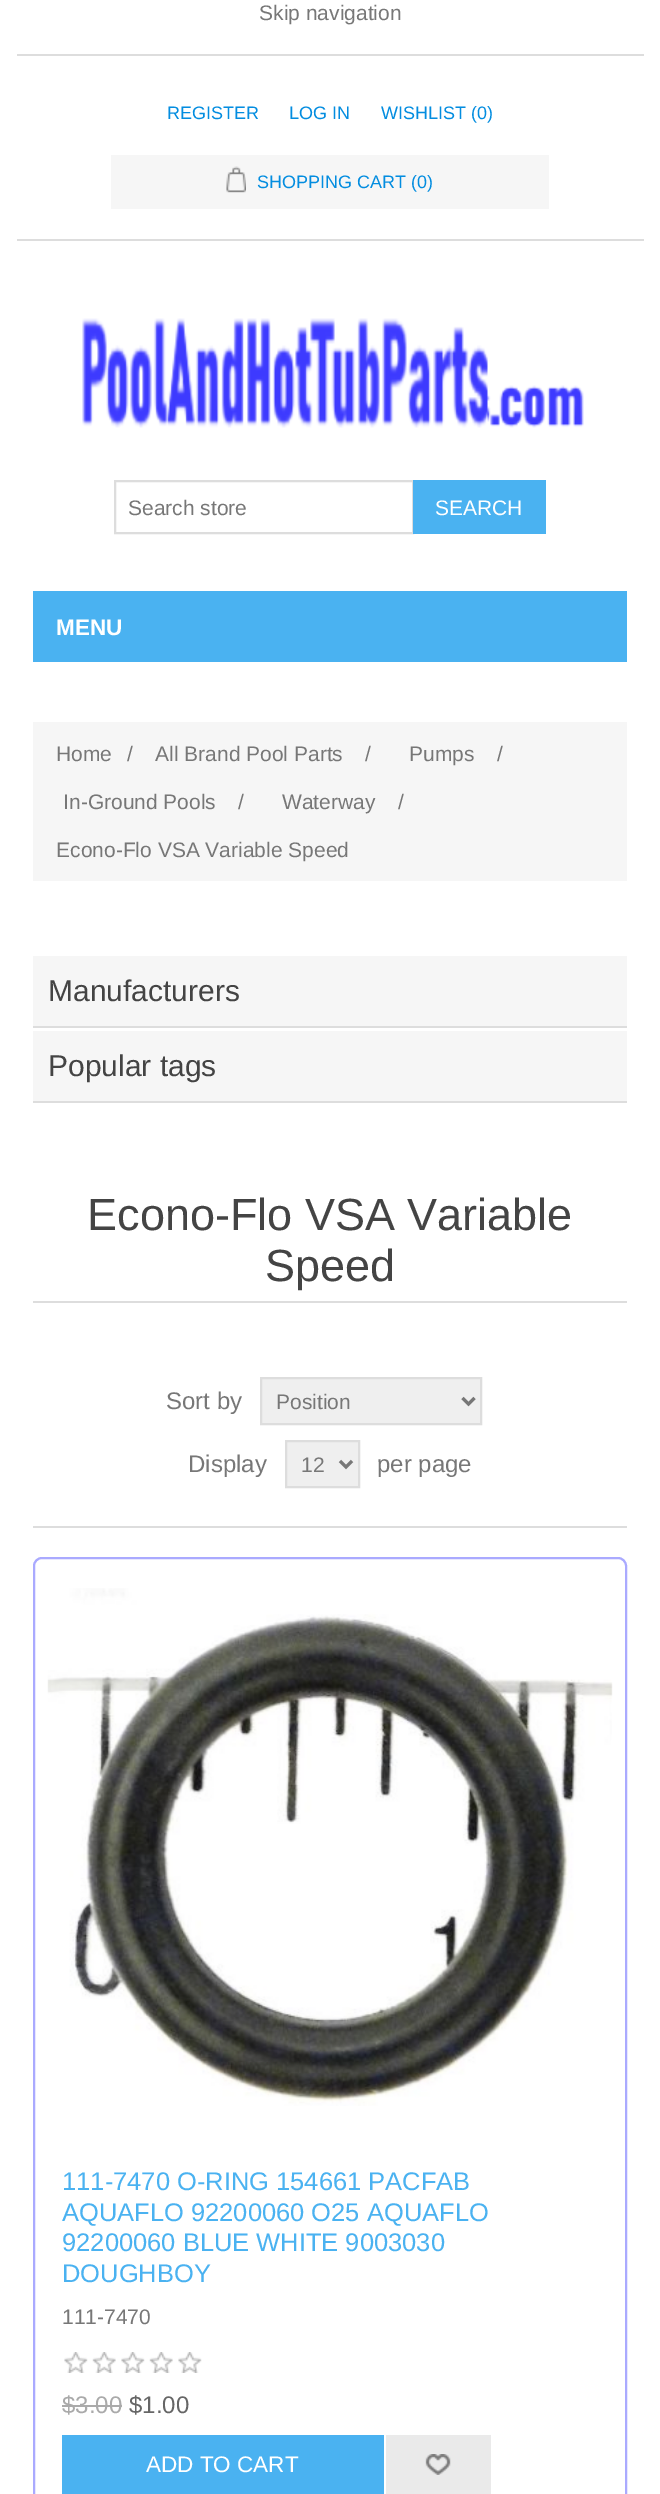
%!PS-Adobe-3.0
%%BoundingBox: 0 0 660 2494
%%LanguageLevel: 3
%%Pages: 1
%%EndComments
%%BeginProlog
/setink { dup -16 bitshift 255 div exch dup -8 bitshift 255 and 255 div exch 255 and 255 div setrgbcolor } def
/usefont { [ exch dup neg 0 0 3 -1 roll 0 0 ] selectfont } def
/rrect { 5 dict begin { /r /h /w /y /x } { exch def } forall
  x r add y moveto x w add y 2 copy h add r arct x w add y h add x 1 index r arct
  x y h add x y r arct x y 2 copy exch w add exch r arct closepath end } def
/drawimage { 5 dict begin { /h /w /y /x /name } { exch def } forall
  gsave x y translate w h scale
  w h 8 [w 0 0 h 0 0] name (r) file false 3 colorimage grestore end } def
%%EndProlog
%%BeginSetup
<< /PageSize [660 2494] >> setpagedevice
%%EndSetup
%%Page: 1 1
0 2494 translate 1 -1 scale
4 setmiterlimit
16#FFFFFF setink
0 0 660 2494 rectfill
/LiberationSans-Regular 21 usefont
16#777777 setink
259 20 moveto (Skip navigation) show
16#DDDDDD setink
17 239 627 2 rectfill
17 54 627 2 rectfill
/LiberationSans-Regular 18 usefont
16#038DE0 setink
[
    [(REGISTER) 167 119]
    [(LOG IN) 289 119]
    [(WISHLIST \(0\)) 381 119]
] { aload pop moveto show } forall
16#F6F6F6 setink
111 155 438 54 rectfill
(img1.raw) 226 166 20 27 drawimage
16#038DE0 setink
257 188 moveto (SHOPPING CART \(0\)) show
(img2.raw) 82 318 502 110 drawimage
16#DDDDDD setink
2 setlinewidth
115 481 298 52 rectstroke
/LiberationSans-Regular 21 usefont
16#777777 setink
128 515 moveto (Search store) show
16#4AB2F1 setink
413 480 133 54 rectfill
16#FFFFFF setink
435 515 moveto (SEARCH) show
16#4AB2F1 setink
33 591 594 71 rectfill
/LiberationSans-Bold 22.5 usefont
16#FFFFFF setink
56 635 moveto (MENU) show
16#F6F6F6 setink
33 722 594 159 rectfill
/LiberationSans-Regular 21 usefont
16#777777 setink
[
    [(Home) 56 761]
    [(/) 127 761]
    [(All Brand Pool Parts) 155 761]
    [(/) 365 761]
    [(Pumps) 409 761]
    [(/) 497 761]
    [(In-Ground Pools) 63 809]
    [(/) 238 809]
    [(Waterway) 282 809]
    [(/) 398 809]
    [(Econo-Flo VSA Variable Speed) 56 857]
] { aload pop moveto show } forall
16#F6F6F6 setink
33 956 594 70 rectfill
16#DDDDDD setink
33 1026 594 2 rectfill
/LiberationSans-Regular 30 usefont
16#444444 setink
48 1001 moveto (Manufacturers) show
16#F6F6F6 setink
33 1031 594 70 rectfill
16#DDDDDD setink
33 1101 594 2 rectfill
16#444444 setink
48 1076 moveto (Popular tags) show
16#DDDDDD setink
33 1301 594 2 rectfill
/LiberationSans-Regular 45 usefont
16#444444 setink
87 1230 moveto (Econo-Flo VSA Variable) show
265 1281 moveto (Speed) show
16#DDDDDD setink
33 1526 594 2 rectfill
/LiberationSans-Regular 24 usefont
16#777777 setink
166 1409 moveto (Sort by) show
16#EFEFEF setink
261 1378 moveto 481 1378 lineto 481 1424 lineto 261 1424 lineto closepath gsave fill grestore
16#DDDDDD setink
stroke
16#777777 setink
3 setlinewidth
462.5 1398 moveto 468.5 1404 lineto 474.5 1398 lineto stroke
/LiberationSans-Regular 21 usefont
276 1409 moveto (Position) show
/LiberationSans-Regular 24 usefont
188 1472 moveto (Display) show
16#EFEFEF setink
286 1441 moveto 359 1441 lineto 359 1487 lineto 286 1487 lineto closepath gsave fill grestore
16#DDDDDD setink
2 setlinewidth
stroke
16#777777 setink
3 setlinewidth
340 1461 moveto 346 1467 lineto 352 1461 lineto stroke
/LiberationSans-Regular 21 usefont
301 1472 moveto (12) show
/LiberationSans-Regular 24 usefont
377 1472 moveto (per page) show
16#AAAAFF setink
2 setlinewidth
34 1558 592 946 8 rrect stroke
(img3.raw) 47 1588 566 518 drawimage
/LiberationSans-Regular 25.5 usefont
16#4AB2F1 setink
[
    [(111-7470 O-RING 154661 PACFAB) 62 2190]
    [(AQUAFLO 92200060 O25 AQUAFLO) 62 2221]
    [(92200060 BLUE WHITE 9003030) 62 2251]
    [(DOUGHBOY) 62 2282]
] { aload pop moveto show } forall
/LiberationSans-Regular 21 usefont
16#777777 setink
62 2324 moveto (111-7470) show
(img4.raw) 64 2352 138 21 drawimage
/LiberationSans-Regular 24 usefont
16#AAAAAA setink
62 2413 moveto ($3.00) show
62 2405 60 2 rectfill
16#666666 setink
129 2413 moveto ($1.00) show
16#4AB2F1 setink
62 2435 322 59 rectfill
/LiberationSans-Regular 22.5 usefont
16#FFFFFF setink
146 2472 moveto (ADD TO CART) show
16#EAEAEA setink
386 2435 105 59 rectfill
(img5.raw) 425 2454 26 21 drawimage
showpage
%%EOF
